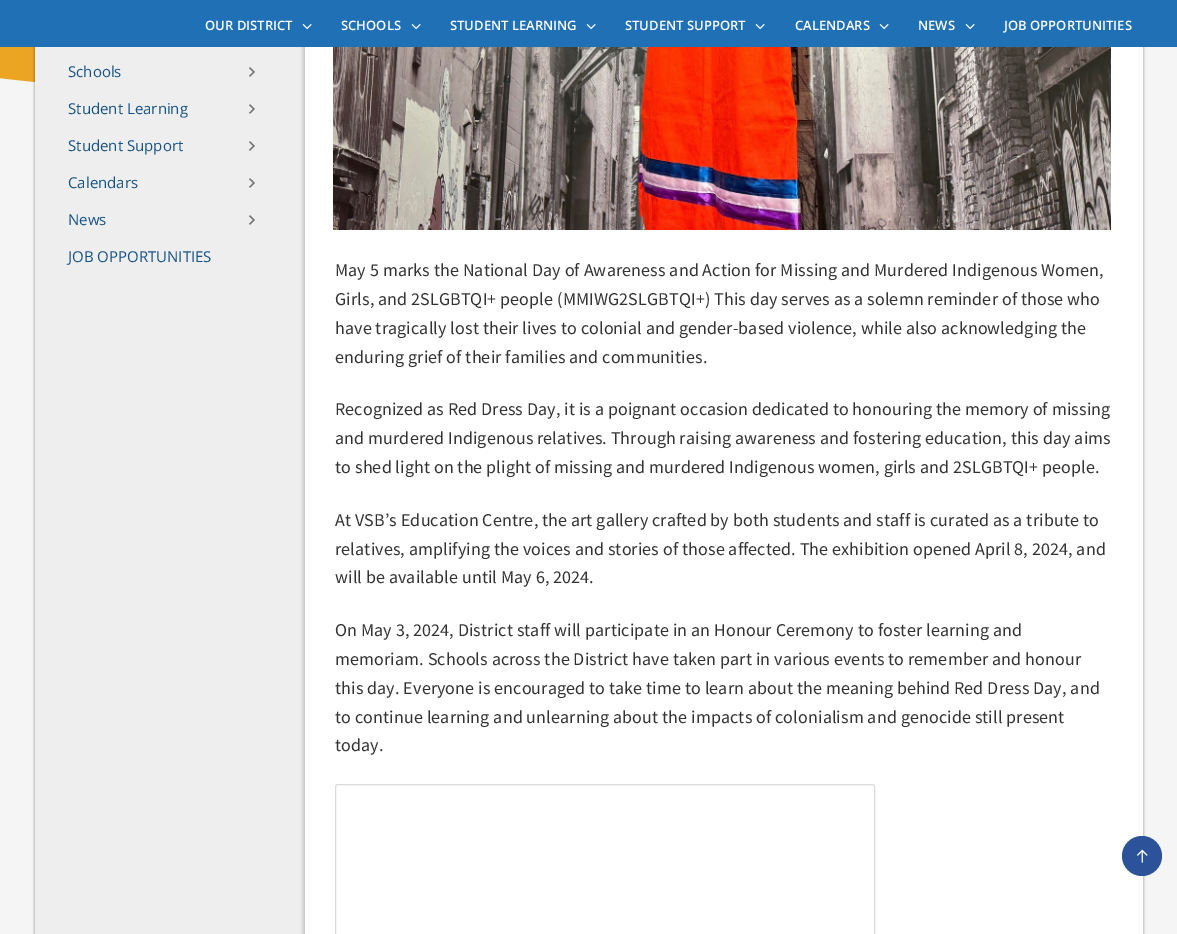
%!PS-Adobe-3.0
%%BoundingBox: 0 0 1177 934
%%LanguageLevel: 3
%%Pages: 1
%%EndComments
%%BeginProlog
/setink { dup -16 bitshift 255 div exch dup -8 bitshift 255 and 255 div exch 255 and 255 div setrgbcolor } def
/usefont { [ exch dup neg 0 0 3 -1 roll 0 0 ] selectfont } def
/setalpha { dup .setfillconstantalpha .setstrokeconstantalpha } def
/disc { newpath 0 360 arc closepath } def
/rrect { 5 dict begin { /r /h /w /y /x } { exch def } forall
  x r add y moveto x w add y 2 copy h add r arct x w add y h add x 1 index r arct
  x y h add x y r arct x y 2 copy exch w add exch r arct closepath end } def
/softshadow { 12 dict begin { /a /b /q /h /w /y /x } { exch def } forall gsave /was 0 def
  9 -2 -9 { dup b mul 4 div /e exch def 1 sub .425 mul 2.718 exch exp 1 add a .99 .min exch div /now exch def
    1 1 now sub 1 was sub div sub setalpha /was now def
    w h .min e 2 mul add 0 gt { x e sub y e sub w e 2 mul add h e 2 mul add
      q e add b .6 mul add w h .min 2 div e add .min 0 .max rrect fill } if } for grestore end } def
/drawimage { 5 dict begin { /h /w /y /x /name } { exch def } forall
  gsave x y translate w h scale
  w h 8 [w 0 0 h 0 0] name (r) file false 3 colorimage grestore end } def
%%EndProlog
%%BeginSetup
<< /PageSize [1177 934] /PageUsesTransparency true >> setpagedevice
%%EndSetup
%%Page: 1 1
0 .pushpdf14devicefilter
0 934 translate 1 -1 scale
4 setmiterlimit
16#F5F5F5 setink
0 0 1177 934 rectfill
16#ECA423 setink
0 47 35 36 rectfill
16#F5F5F5 setink
-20 76 moveto -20 156 lineto 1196 156 lineto 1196 12 lineto 1044 48 899 72 761 85 curveto 624 97 501 103 393 103 curveto 285 103 195 99 122 91 curveto 50 84 3 79 -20 76 curveto closepath fill
16#000000 setink
34 -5 1110 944 2 1 0.25 softshadow
16#2070B6 setink
0 0 1177 47 rectfill
/OpenSans-SemiBold 13 usefont
16#FFFFFF setink
205 30 moveto (OUR DISTRICT) show
(img1.raw) 302 24 10 6 drawimage
341 30 moveto (SCHOOLS) show
(img1.raw) 411 24 10 6 drawimage
450 30 moveto (STUDENT LEARNING) show
(img1.raw) 586 24 10 6 drawimage
625 30 moveto (STUDENT SUPPORT) show
(img1.raw) 755 24 10 6 drawimage
795 30 moveto (CALENDARS) show
(img1.raw) 879 24 10 6 drawimage
918 30 moveto (NEWS) show
(img1.raw) 965 24 10 6 drawimage
1004 30 moveto (JOB OPPORTUNITIES) show
305 47 838 887 rectfill
16#EEEEEE setink
35 47 265 887 rectfill
/OpenSans-Regular 15 usefont
16#175285 setink
68 77 moveto (Schools) show
(img2.raw) 249 67 6 10 drawimage
68 114 moveto (Student Learning) show
(img2.raw) 249 104 6 10 drawimage
68 151 moveto (Student Support) show
(img2.raw) 249 141 6 10 drawimage
68 188 moveto (Calendars) show
(img2.raw) 249 178 6 10 drawimage
68 225 moveto (News) show
(img2.raw) 249 215 6 10 drawimage
68 262 moveto (JOB OPPORTUNITIES) show
gsave 300 47 moveto 305 47 lineto 305 934 lineto 300 934 lineto closepath clip newpath
<< /ShadingType 2 /ColorSpace /DeviceRGB /Coords [300 679 305 679] /Extend [true true] /Function << /FunctionType 2 /Domain [0 1] /C0 [0.933 0.933 0.933] /C1 [0.792 0.792 0.792] /N 1 >> >> shfill grestore
(img3.raw) 333 47 778 183 drawimage
/SourceSansPro-Regular 18 usefont
16#333333 setink
335 276 moveto 0.14 0 (May 5 marks the National Day of Awareness and Action for Missing and Murdered Indigenous Women,) ashow
335 305 moveto 0.14 0 (Girls, and 2SLGBTQI+ people \(MMIWG2SLGBTQI+\) This day serves as a solemn reminder of those who) ashow
335 334 moveto 0.14 0 (have tragically lost their lives to colonial and gender-based violence, while also acknowledging the) ashow
335 363 moveto 0.14 0 (enduring grief of their families and communities.) ashow
335 415 moveto 0.14 0 (Recognized as Red Dress Day, it is a poignant occasion dedicated to honouring the memory of missing) ashow
335 444 moveto 0.14 0 (and murdered Indigenous relatives. Through raising awareness and fostering education, this day aims) ashow
335 473 moveto 0.14 0 (to shed light on the plight of missing and murdered Indigenous women, girls and 2SLGBTQI+ people.) ashow
335 526 moveto 0.14 0 (At VSB’s Education Centre, the art gallery crafted by both students and staff is curated as a tribute to) ashow
335 555 moveto 0.14 0 (relatives, amplifying the voices and stories of those affected. The exhibition opened April 8, 2024, and) ashow
335 583 moveto 0.14 0 (will be available until May 6, 2024.) ashow
335 636 moveto 0.14 0 (On May 3, 2024, District staff will participate in an Honour Ceremony to foster learning and) ashow
335 665 moveto 0.14 0 (memoriam. Schools across the District have taken part in various events to remember and honour) ashow
335 694 moveto 0.14 0 (this day. Everyone is encouraged to take time to learn about the meaning behind Red Dress Day, and) ashow
335 723 moveto 0.14 0 (to continue learning and unlearning about the impacts of colonialism and genocide still present) ashow
335 751 moveto 0.14 0 (today.) ashow
16#DBDBDB setink
335.5 784.5 539 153 2.5 rrect stroke
16#2C5399 setink
1142 856 20 disc fill
(img4.raw) 1137 849 11 14 drawimage
.poppdf14devicefilter showpage
%%EOF
